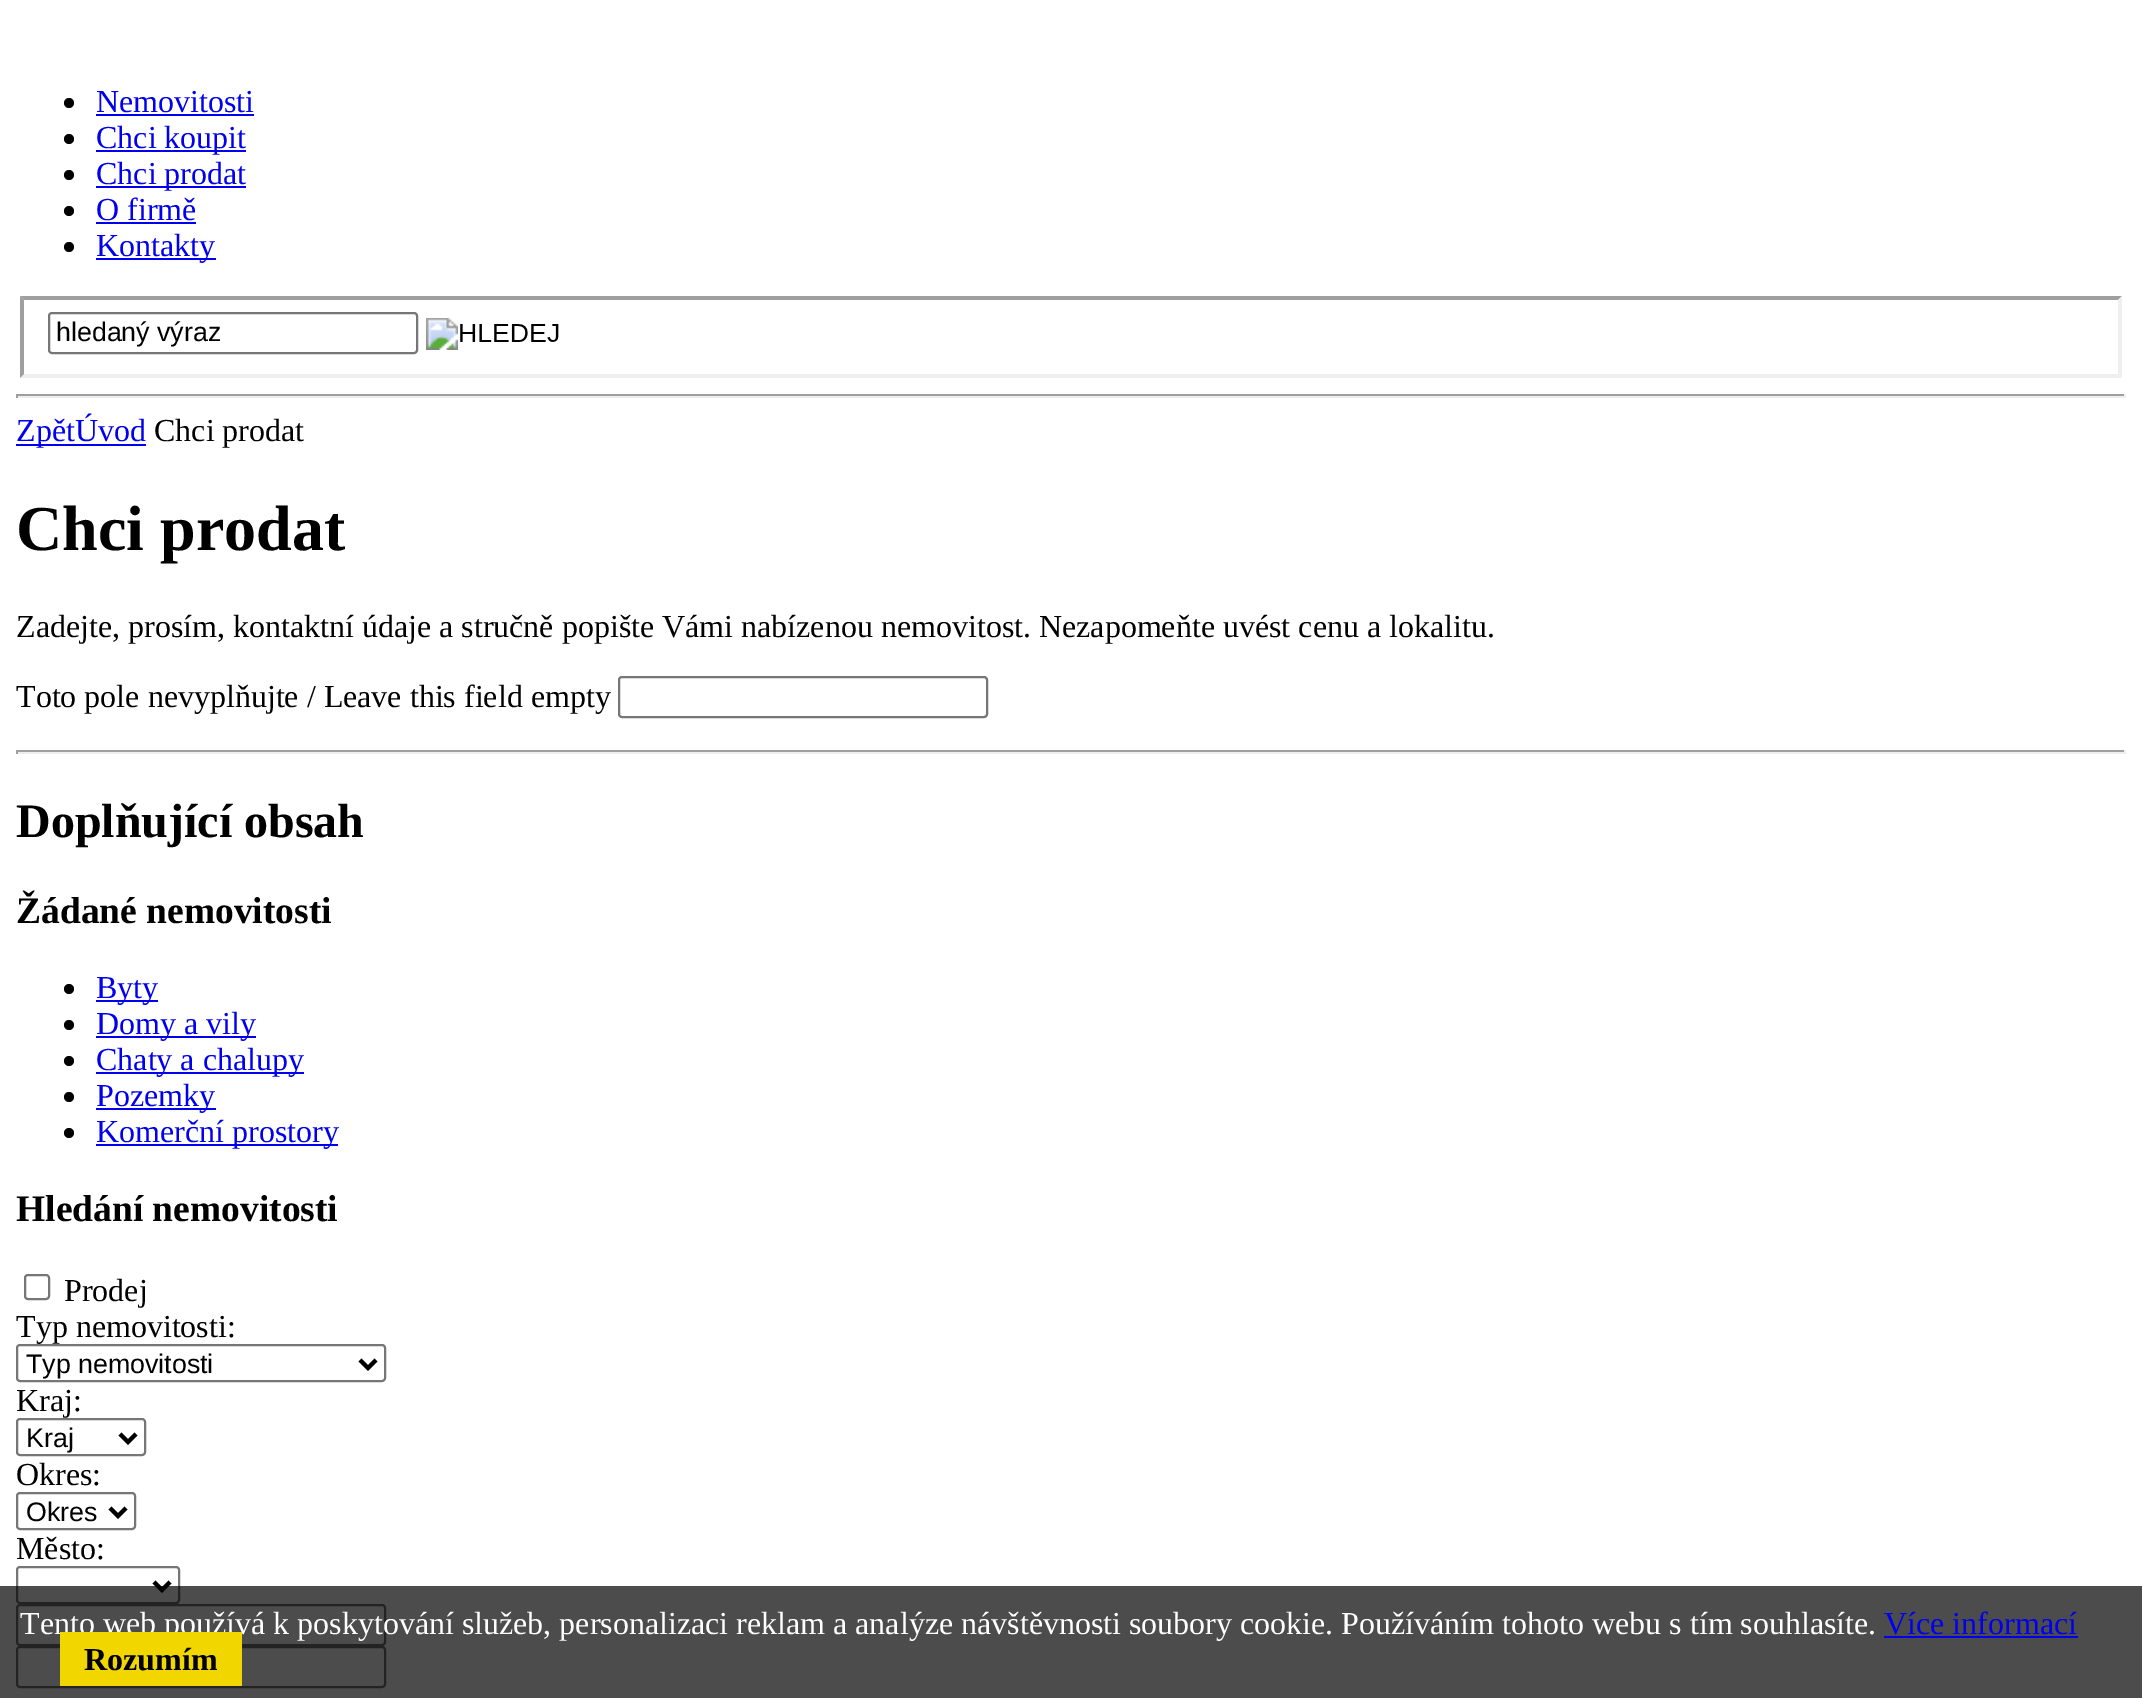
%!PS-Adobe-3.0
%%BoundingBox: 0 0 2142 1698
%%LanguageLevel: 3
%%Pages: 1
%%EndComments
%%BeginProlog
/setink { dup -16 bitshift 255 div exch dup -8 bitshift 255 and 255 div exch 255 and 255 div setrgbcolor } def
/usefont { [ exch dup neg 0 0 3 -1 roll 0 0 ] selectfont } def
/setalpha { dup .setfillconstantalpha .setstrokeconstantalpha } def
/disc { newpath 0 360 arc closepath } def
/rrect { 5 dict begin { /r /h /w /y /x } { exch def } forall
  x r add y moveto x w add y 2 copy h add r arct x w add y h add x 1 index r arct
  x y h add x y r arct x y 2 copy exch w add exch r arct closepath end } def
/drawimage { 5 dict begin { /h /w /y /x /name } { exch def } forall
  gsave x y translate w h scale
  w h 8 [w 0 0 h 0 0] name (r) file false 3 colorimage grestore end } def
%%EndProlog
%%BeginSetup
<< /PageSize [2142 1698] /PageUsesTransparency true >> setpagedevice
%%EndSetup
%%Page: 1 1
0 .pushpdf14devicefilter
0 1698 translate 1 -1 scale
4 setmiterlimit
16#FFFFFF setink
0 0 2142 1698 rectfill
16#000000 setink
69 103 5 disc fill
/LiberationSerif-Regular 32 usefont
16#0000EE setink
96 112 moveto (Nemovitosti) show
96 114 158 2 rectfill
16#000000 setink
69 139 5 disc fill
16#0000EE setink
96 150 150 2 rectfill
96 148 moveto (Chci koupit) show
16#000000 setink
69 175 5 disc fill
16#0000EE setink
96 186 150 2 rectfill
96 184 moveto (Chci prodat) show
16#000000 setink
69 211 5 disc fill
16#0000EE setink
96 220 moveto (O firmě) show
96 222 100 2 rectfill
16#000000 setink
69 247 5 disc fill
16#0000EE setink
96 258 120 2 rectfill
96 256 moveto (Kontakty) show
16#9F9F9F setink
20 296 moveto 2122 296 lineto 2118 300 lineto 24 300 lineto closepath fill
16#EFEFEF setink
2122 296 moveto 2122 378 lineto 2118 374 lineto 2118 300 lineto closepath fill
2122 378 moveto 20 378 lineto 24 374 lineto 2118 374 lineto closepath fill
16#9F9F9F setink
20 378 moveto 20 296 lineto 24 300 lineto 24 374 lineto closepath fill
16#767676 setink
2 setlinewidth
49 313 368 40 3 rrect stroke
/LiberationSans-Regular 26.75 usefont
16#000000 setink
56 341 moveto (hledaný výraz) show
(img1.raw) 426 318 133 32 drawimage
[
    [16 394 2110 2 16#9F9F9F]
    [2124 394 2 4 16#EEEEEE]
    [16 396 2110 2 16#EEEEEE]
    [16 394 2 4 16#9F9F9F]
    [16 444 58 2 16#0000EE]
] { aload pop setink rectfill } forall
/LiberationSerif-Regular 32 usefont
16 441 moveto (ZpětÚvod) show
16#000000 setink
154 441 moveto (Chci prodat) show
16#0000EE setink
74 444 72 2 rectfill
/LiberationSerif-Bold 64 usefont
16#000000 setink
16 550 moveto (Chci prodat) show
/LiberationSerif-Regular 32 usefont
16 637 moveto (Zadejte, prosím, kontaktní údaje a stručně popište Vámi nabízenou nemovitost. Nezapomeňte uvést cenu a lokalitu.) show
16 707 moveto (Toto pole nevyplňujte / Leave this field empty) show
16#767676 setink
619 677 368 40 3 rrect stroke
[
    [16 750 2110 2 16#9F9F9F]
    [2124 750 2 4 16#EEEEEE]
    [16 752 2110 2 16#EEEEEE]
    [16 750 2 4 16#9F9F9F]
] { aload pop setink rectfill } forall
/LiberationSerif-Bold 48 usefont
16#000000 setink
16 837 moveto (Doplňující obsah) show
/LiberationSerif-Bold 37.5 usefont
16 923 moveto (Žádané nemovitosti) show
69 989 5 disc fill
16#0000EE setink
96 1000 62 2 rectfill
/LiberationSerif-Regular 32 usefont
96 998 moveto (Byty) show
16#000000 setink
69 1025 5 disc fill
16#0000EE setink
96 1036 160 2 rectfill
96 1034 moveto (Domy a vily) show
16#000000 setink
69 1061 5 disc fill
16#0000EE setink
96 1072 208 2 rectfill
96 1070 moveto (Chaty a chalupy) show
16#000000 setink
69 1097 5 disc fill
16#0000EE setink
96 1108 120 2 rectfill
96 1106 moveto (Pozemky) show
16#000000 setink
69 1133 5 disc fill
16#0000EE setink
96 1144 242 2 rectfill
96 1142 moveto (Komerční prostory) show
/LiberationSerif-Bold 37.5 usefont
16#000000 setink
16 1221 moveto (Hledání nemovitosti) show
16#767676 setink
25 1275 24 24 3 rrect stroke
/LiberationSerif-Regular 32 usefont
16#000000 setink
64 1301 moveto (Prodej) show
16 1337 moveto (Typ nemovitosti:) show
16#767676 setink
17 1345 368 36 3 rrect stroke
16#000000 setink
4 setlinewidth
360 1360 moveto 368 1368 lineto 376 1360 lineto stroke
/LiberationSans-Regular 26.75 usefont
26 1373 moveto (Typ nemovitosti) show
/LiberationSerif-Regular 32 usefont
16 1411 moveto (Kraj:) show
16#767676 setink
2 setlinewidth
17 1419 128 36 3 rrect stroke
16#000000 setink
4 setlinewidth
120 1434 moveto 128 1442 lineto 136 1434 lineto stroke
/LiberationSans-Regular 26.75 usefont
26 1447 moveto (Kraj) show
/LiberationSerif-Regular 32 usefont
16 1485 moveto (Okres:) show
16#767676 setink
2 setlinewidth
17 1493 118 36 3 rrect stroke
16#000000 setink
4 setlinewidth
110 1508 moveto 118 1516 lineto 126 1508 lineto stroke
/LiberationSans-Regular 26.75 usefont
26 1521 moveto (Okres) show
/LiberationSerif-Regular 32 usefont
16 1559 moveto (Město:) show
16#767676 setink
2 setlinewidth
17 1567 162 36 3 rrect stroke
16#000000 setink
4 setlinewidth
154 1582 moveto 162 1590 lineto 170 1582 lineto stroke
16#767676 setink
2 setlinewidth
17 1605 368 40 3 rrect stroke
17 1647 368 40 3 rrect stroke
0.7 setalpha
16#000000 setink
0 1586 2142 112 rectfill
1 setalpha
16#FFFFFF setink
20 1634 moveto (Tento web používá k poskytování služeb, personalizaci reklam a analýze návštěvnosti soubory cookie. Používáním tohoto webu s tím souhlasíte.) show
16#0000EE setink
1884 1634 moveto (Více informací) show
1884 1636 194 2 rectfill
16#F1D600 setink
60 1632 182 54 rectfill
/LiberationSerif-Bold 32 usefont
16#000000 setink
84 1670 moveto (Rozumím) show
.poppdf14devicefilter showpage
%%EOF
